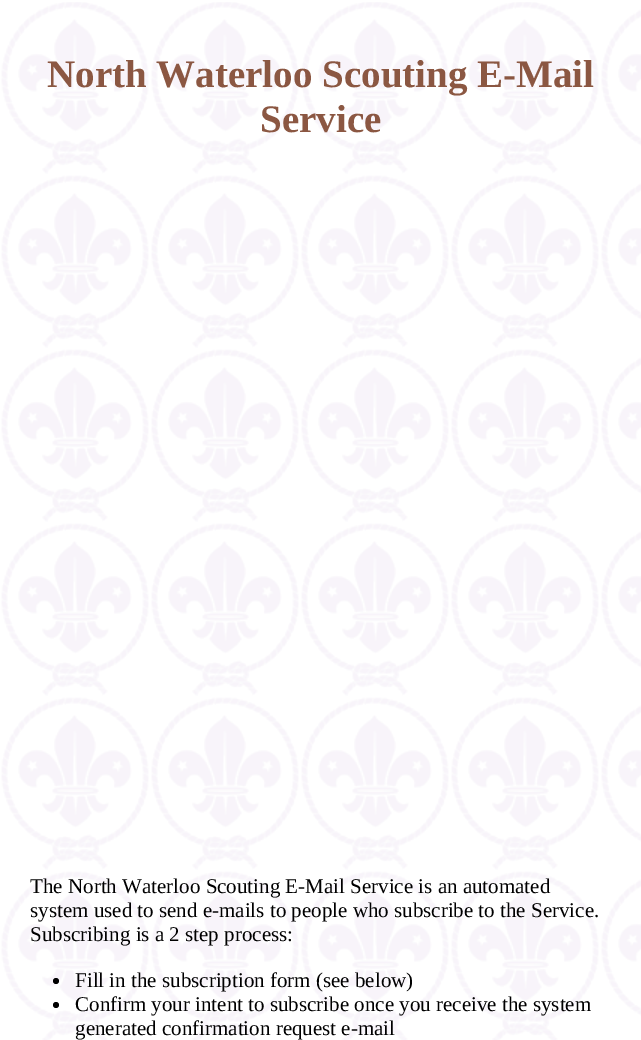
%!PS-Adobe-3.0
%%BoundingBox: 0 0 641 1040
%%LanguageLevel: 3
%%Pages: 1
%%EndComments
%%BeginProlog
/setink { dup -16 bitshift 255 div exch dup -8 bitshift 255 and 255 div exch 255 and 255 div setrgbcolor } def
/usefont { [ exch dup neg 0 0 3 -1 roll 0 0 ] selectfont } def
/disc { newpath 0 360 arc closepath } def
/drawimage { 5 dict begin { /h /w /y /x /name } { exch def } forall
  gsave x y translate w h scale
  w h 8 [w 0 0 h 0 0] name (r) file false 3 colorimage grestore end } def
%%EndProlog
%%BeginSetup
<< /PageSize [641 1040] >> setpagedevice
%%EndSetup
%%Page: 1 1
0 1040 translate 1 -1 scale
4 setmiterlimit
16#FFFFFF setink
0 0 641 1040 rectfill
(img1.raw) 1 2 640 1038 drawimage
/LiberationSerif-Bold 39 usefont
16#8B5742 setink
47 87 moveto (North Waterloo Scouting E-Mail) show
260 132 moveto (Service) show
/LiberationSerif-Regular 21 usefont
16#000000 setink
[
    [(The North Waterloo Scouting E-Mail Service is an automated) 30 893]
    [(system used to send e-mails to people who subscribe to the Service.) 30 917]
    [(Subscribing is a 2 step process:) 30 941]
] { aload pop moveto show } forall
56 981 3 disc fill
75 987 moveto (Fill in the subscription form \(see below\)) show
56 1005 3 disc fill
75 1011 moveto (Confirm your intent to subscribe once you receive the system) show
75 1035 moveto (generated confirmation request e-mail) show
showpage
%%EOF
